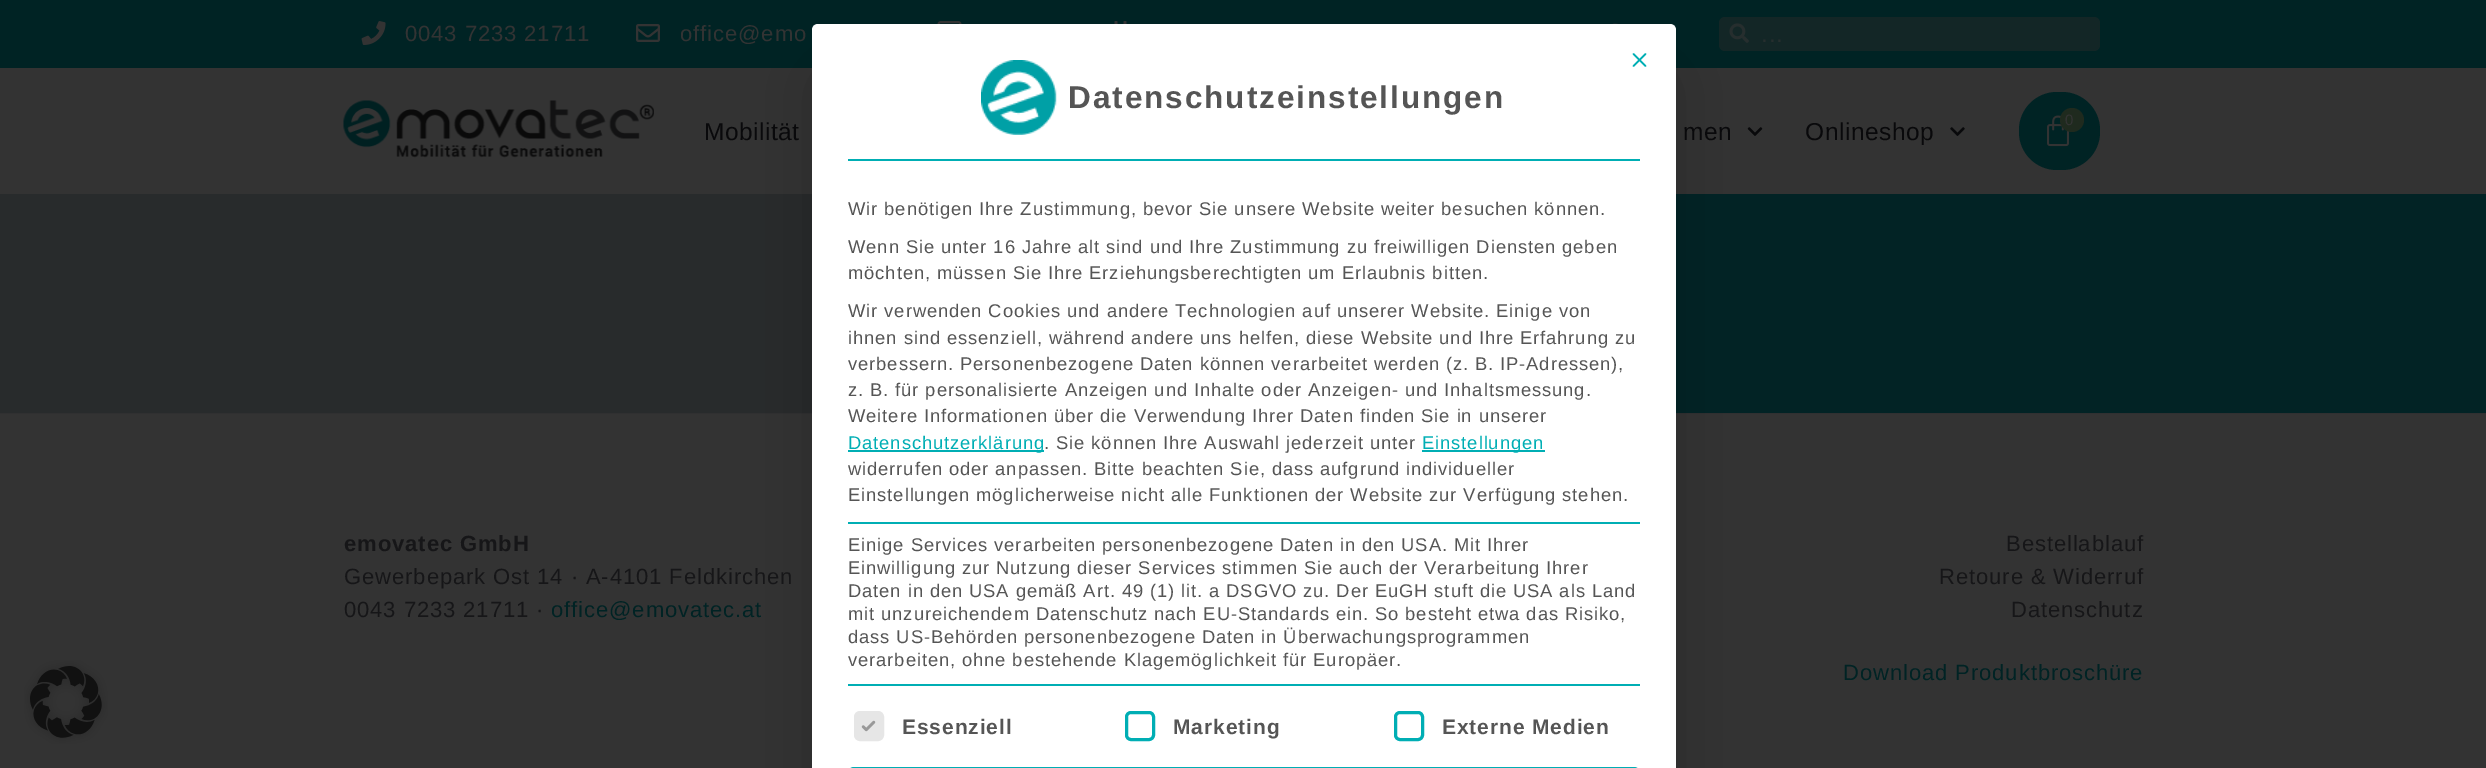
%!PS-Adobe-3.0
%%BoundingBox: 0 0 2486 768
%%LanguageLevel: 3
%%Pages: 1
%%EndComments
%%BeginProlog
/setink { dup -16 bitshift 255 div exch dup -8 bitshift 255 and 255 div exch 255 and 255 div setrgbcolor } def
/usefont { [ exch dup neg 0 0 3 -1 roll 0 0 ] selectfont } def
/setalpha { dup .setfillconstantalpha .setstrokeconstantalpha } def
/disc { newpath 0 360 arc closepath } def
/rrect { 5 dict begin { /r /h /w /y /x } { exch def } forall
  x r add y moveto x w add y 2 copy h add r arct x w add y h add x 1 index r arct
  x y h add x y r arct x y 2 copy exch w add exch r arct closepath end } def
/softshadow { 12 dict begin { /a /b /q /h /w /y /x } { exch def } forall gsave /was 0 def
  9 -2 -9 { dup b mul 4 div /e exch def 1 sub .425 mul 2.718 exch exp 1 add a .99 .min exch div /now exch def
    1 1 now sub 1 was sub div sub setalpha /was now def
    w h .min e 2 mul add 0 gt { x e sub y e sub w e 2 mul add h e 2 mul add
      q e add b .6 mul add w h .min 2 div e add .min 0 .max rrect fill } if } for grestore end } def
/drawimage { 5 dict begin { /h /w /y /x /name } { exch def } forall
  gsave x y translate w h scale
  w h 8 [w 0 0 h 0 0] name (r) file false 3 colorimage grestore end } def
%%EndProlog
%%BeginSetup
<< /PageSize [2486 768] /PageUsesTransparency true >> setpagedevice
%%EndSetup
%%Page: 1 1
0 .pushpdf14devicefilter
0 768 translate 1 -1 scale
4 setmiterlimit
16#333333 setink
0 0 2486 768 rectfill
16#002324 setink
0 0 2486 68 rectfill
(img1.raw) 1612 23 6 1 drawimage
(img2.raw) 937 21 25 3 drawimage
(img3.raw) 1114 21 13 3 drawimage
(img4.raw) 361 21 25 24 drawimage
/LiberationSans-Regular 22.05 usefont
16#333333 setink
405 41 moveto 0.9 0 (0043 7233 21711) ashow
(img5.raw) 636 24 24 18 drawimage
680 41 moveto 0.9 0 (office@emo) ashow
16#132626 setink
1719 17 381 34 6 rrect fill
(img6.raw) 1729 23 20 20 drawimage
/LiberationSans-Regular 24 usefont
16#262E2E setink
1761 42 moveto 0.9 0 (...) ashow
(img7.raw) 343 100 311 58 drawimage
16#002324 setink
2019 92 81 78 38 rrect fill
(img8.raw) 2047 115 22 32 drawimage
16#1F2A1E setink
2072 120 12 disc fill
/LiberationSans-Regular 15 usefont
16#333333 setink
2065 125 moveto 3 0 (0) ashow
/LiberationSans-Regular 24.5 usefont
16#09090B setink
704 140 moveto 0.5 0 (Mobilität) ashow
1683 140 moveto 0.5 0 (men) ashow
(img9.raw) 1747 127 16 9 drawimage
1805 140 moveto 0.5 0 (Onlineshop) ashow
(img10.raw) 1950 127 15 9 drawimage
[
    [0 194 812 219 16#282B2C]
    [1676 194 810 219 16#022325]
    [0 413 2486 1 16#303031]
] { aload pop setink rectfill } forall
/LiberationSans-Bold 22.05 usefont
16#161618 setink
344 551 moveto 0.9 0 (emovatec GmbH) ashow
/LiberationSans-Regular 22.05 usefont
344 584 moveto 0.9 0 (Gewerbepark Ost 14 · A-4101 Feldkirchen) ashow
344 617 moveto 0.9 0 (0043 7233 21711 ·) ashow
16#002324 setink
551 617 moveto 0.9 0 (office@emovatec.at) ashow
16#161618 setink
2006 551 moveto 0.9 0 (Bestellablauf) ashow
1939 584 moveto 0.9 0 (Retoure & Widerruf) ashow
2011 617 moveto 0.9 0 (Datenschutz) ashow
16#002324 setink
1843 680 moveto 0.9 0 (Download Produktbroschüre) ashow
(img11.raw) 24 660 84 84 drawimage
16#000000 setink
830 80 828 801 0 37.5 0.25 softshadow
16#FFFFFF setink
818 24 moveto 1670 24 lineto 1673.5 24 1676 26.5 1676 30 curveto 1676 768 lineto 812 768 lineto 812 30 lineto 812 26.5 814.5 24 818 24 curveto closepath fill
16#00AEB4 setink
1.5 setlinewidth
1 setlinecap
1 setlinejoin
1633.5 66 moveto 1645.5 54 lineto 1633.5 54 moveto 1645.5 66 lineto stroke
848 159 792 2 rectfill
(img12.raw) 981 60 76 75 drawimage
/LiberationSans-Bold 31.5 usefont
16#555555 setink
1068 108 moveto 1.95 0 (Datenschutzeinstellungen) ashow
/LiberationSans-Regular 18.4 usefont
848 215 moveto 0.9 0 (Wir benötigen Ihre Zustimmung, bevor Sie unsere Website weiter besuchen können.) ashow
848 253 moveto 0.9 0 (Wenn Sie unter 16 Jahre alt sind und Ihre Zustimmung zu freiwilligen Diensten geben) ashow
848 279 moveto 0.9 0 (möchten, müssen Sie Ihre Erziehungsberechtigten um Erlaubnis bitten.) ashow
848 317 moveto 0.9 0 (Wir verwenden Cookies und andere Technologien auf unserer Website. Einige von) ashow
848 344 moveto 0.9 0 (ihnen sind essenziell, während andere uns helfen, diese Website und Ihre Erfahrung zu) ashow
848 370 moveto 0.9 0 (verbessern. Personenbezogene Daten können verarbeitet werden \(z. B. IP-Adressen\),) ashow
848 396 moveto 0.9 0 (z. B. für personalisierte Anzeigen und Inhalte oder Anzeigen- und Inhaltsmessung.) ashow
848 422 moveto 0.9 0 (Weitere Informationen über die Verwendung Ihrer Daten finden Sie in unserer) ashow
16#00AEB4 setink
848 450 196 2 rectfill
848 449 moveto 0.9 0 (Datenschutzerklärung) ashow
16#555555 setink
1044 449 moveto 0.9 0 (. Sie können Ihre Auswahl jederzeit unter) ashow
16#00AEB4 setink
1422 450 123 2 rectfill
1422 449 moveto 0.9 0 (Einstellungen) ashow
16#555555 setink
848 475 moveto 0.9 0 (widerrufen oder anpassen. Bitte beachten Sie, dass aufgrund individueller) ashow
848 501 moveto 0.9 0 (Einstellungen möglicherweise nicht alle Funktionen der Website zur Verfügung stehen.) ashow
16#00AEB4 setink
848 522 792 2 rectfill
848 684 792 2 rectfill
16#555555 setink
848 551 moveto 0.9 0 (Einige Services verarbeiten personenbezogene Daten in den USA. Mit Ihrer) ashow
848 574 moveto 0.9 0 (Einwilligung zur Nutzung dieser Services stimmen Sie auch der Verarbeitung Ihrer) ashow
848 597 moveto 0.9 0 (Daten in den USA gemäß Art. 49 \(1\) lit. a DSGVO zu. Der EuGH stuft die USA als Land) ashow
848 620 moveto 0.9 0 (mit unzureichendem Datenschutz nach EU-Standards ein. So besteht etwa das Risiko,) ashow
848 643 moveto 0.9 0 (dass US-Behörden personenbezogene Daten in Überwachungsprogrammen) ashow
848 666 moveto 0.9 0 (verarbeiten, ohne bestehende Klagemöglichkeit für Europäer.) ashow
16#E6E6E6 setink
855.5 712.5 27 27 4.5 rrect gsave fill grestore
3 setlinewidth
0 setlinecap
0 setlinejoin
stroke
(img13.raw) 861 720 15 12 drawimage
/LiberationSans-Bold 21 usefont
16#555555 setink
902 734 moveto 0.9 0 (Essenziell) ashow
16#00AEB4 setink
1126.5 712.5 27 27 4.5 rrect stroke
16#555555 setink
1173 734 moveto 0.9 0 (Marketing) ashow
16#00AEB4 setink
1395.5 712.5 27 27 4.5 rrect stroke
16#555555 setink
1442 734 moveto 0.9 0 (Externe Medien) ashow
16#00AEB4 setink
854 767 moveto 1634 767 lineto 1637.5 767 1640 769.5 1640 773 curveto 1640 768 lineto 848 768 lineto 848 773 lineto 848 769.5 850.5 767 854 767 curveto closepath fill
.poppdf14devicefilter showpage
%%EOF
